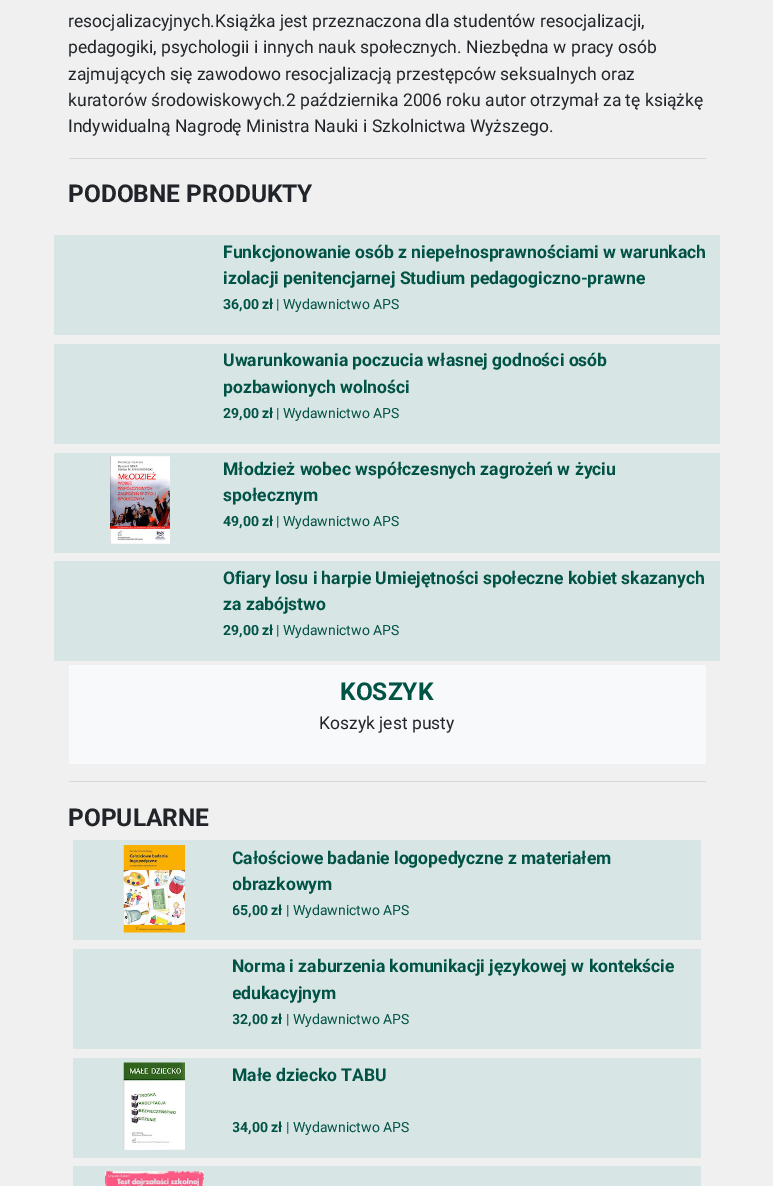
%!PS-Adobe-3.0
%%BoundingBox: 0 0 773 1186
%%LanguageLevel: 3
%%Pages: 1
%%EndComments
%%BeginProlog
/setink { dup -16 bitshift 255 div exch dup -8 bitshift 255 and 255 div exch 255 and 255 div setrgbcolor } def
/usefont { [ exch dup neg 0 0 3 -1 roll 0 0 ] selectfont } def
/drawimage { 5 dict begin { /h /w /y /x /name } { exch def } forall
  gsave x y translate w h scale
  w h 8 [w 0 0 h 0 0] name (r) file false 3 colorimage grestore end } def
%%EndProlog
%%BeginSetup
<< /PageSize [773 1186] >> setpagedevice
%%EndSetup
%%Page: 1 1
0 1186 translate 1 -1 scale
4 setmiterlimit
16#F0F0F0 setink
0 0 773 1186 rectfill
/Roboto-Regular 17.5 usefont
16#212529 setink
[
    [(resocjalizacyjnych.Książka jest przeznaczona dla studentów resocjalizacji,) 68 27]
    [(pedagogiki, psychologii i innych nauk społecznych. Niezbędna w pracy osób) 68 53]
    [(zajmujących się zawodowo resocjalizacją przestępców seksualnych oraz) 68 80]
    [(kuratorów środowiskowych.2 października 2006 roku autor otrzymał za tę książkę) 68 106]
    [(Indywidualną Nagrodę Ministra Nauki i Szkolnictwa Wyższego.) 68 132]
] { aload pop moveto show } forall
16#D8D8D8 setink
69 158 637 1 rectfill
/Roboto-Bold 24.5 usefont
16#212529 setink
68 202 moveto (PODOBNE PRODUKTY) show
16#D8E5E5 setink
54 235 666 100 rectfill
/Roboto-Bold 17.5 usefont
16#005345 setink
223 258 moveto (Funkcjonowanie osób z niepełnosprawnościami w warunkach) show
223 284 moveto (izolacji penitencjarnej Studium pedagogiczno-prawne) show
/Roboto-Bold 14 usefont
223 309 moveto (36,00 zł) show
/Roboto-Regular 14 usefont
276 309 moveto (| Wydawnictwo APS) show
16#D8E5E5 setink
54 344 666 100 rectfill
/Roboto-Bold 17.5 usefont
16#005345 setink
223 366 moveto (Uwarunkowania poczucia własnej godności osób) show
223 393 moveto (pozbawionych wolności) show
/Roboto-Bold 14 usefont
223 418 moveto (29,00 zł) show
/Roboto-Regular 14 usefont
276 418 moveto (| Wydawnictwo APS) show
16#D8E5E5 setink
54 453 666 100 rectfill
(img1.raw) 110 456 60 88 drawimage
/Roboto-Bold 17.5 usefont
16#005345 setink
223 475 moveto (Młodzież wobec współczesnych zagrożeń w życiu) show
223 501 moveto (społecznym) show
/Roboto-Bold 14 usefont
223 526 moveto (49,00 zł) show
/Roboto-Regular 14 usefont
276 526 moveto (| Wydawnictwo APS) show
16#D8E5E5 setink
54 561 666 100 rectfill
/Roboto-Bold 17.5 usefont
16#005345 setink
223 584 moveto (Ofiary losu i harpie Umiejętności społeczne kobiet skazanych) show
223 610 moveto (za zabójstwo) show
/Roboto-Bold 14 usefont
223 635 moveto (29,00 zł) show
/Roboto-Regular 14 usefont
276 635 moveto (| Wydawnictwo APS) show
16#F8F9FA setink
69 665 637 99 rectfill
/Roboto-Bold 24.5 usefont
16#005345 setink
340 700 moveto (KOSZYK) show
/Roboto-Regular 17.5 usefont
16#212529 setink
319 729 moveto (Koszyk jest pusty) show
16#D8D8D8 setink
69 781 637 1 rectfill
/Roboto-Bold 24.5 usefont
16#212529 setink
68 826 moveto (POPULARNE) show
16#D8E5E5 setink
73 840 628 100 rectfill
(img2.raw) 123 845 62 88 drawimage
gsave
233 845 460 56 rectclip
/Roboto-Bold 17.5 usefont
16#005345 setink
232 864 moveto (Całościowe badanie logopedyczne z materiałem) show
232 890 moveto (obrazkowym) show
grestore
gsave
233 901 460 22 rectclip
/Roboto-Bold 14 usefont
16#005345 setink
232 915 moveto (65,00 zł) show
grestore
/Roboto-Regular 14 usefont
16#005345 setink
286 915 moveto (| Wydawnictwo APS) show
16#D8E5E5 setink
73 949 628 100 rectfill
/Roboto-Bold 17.5 usefont
16#005345 setink
232 972 moveto (Norma i zaburzenia komunikacji językowej w kontekście) show
gsave
233 954 460 56 rectclip
232 999 moveto (edukacyjnym) show
grestore
gsave
233 1010 460 21 rectclip
/Roboto-Bold 14 usefont
232 1024 moveto (32,00 zł) show
grestore
/Roboto-Regular 14 usefont
286 1024 moveto (| Wydawnictwo APS) show
16#D8E5E5 setink
73 1058 628 100 rectfill
(img3.raw) 123 1062 62 88 drawimage
/Roboto-Bold 17.5 usefont
16#005345 setink
232 1081 moveto (Małe dziecko TABU) show
gsave
233 1119 460 21 rectclip
/Roboto-Bold 14 usefont
232 1132 moveto (34,00 zł) show
grestore
/Roboto-Regular 14 usefont
286 1132 moveto (| Wydawnictwo APS) show
16#D8E5E5 setink
73 1166 628 20 rectfill
(img4.raw) 105 1171 99 15 drawimage
showpage
%%EOF
